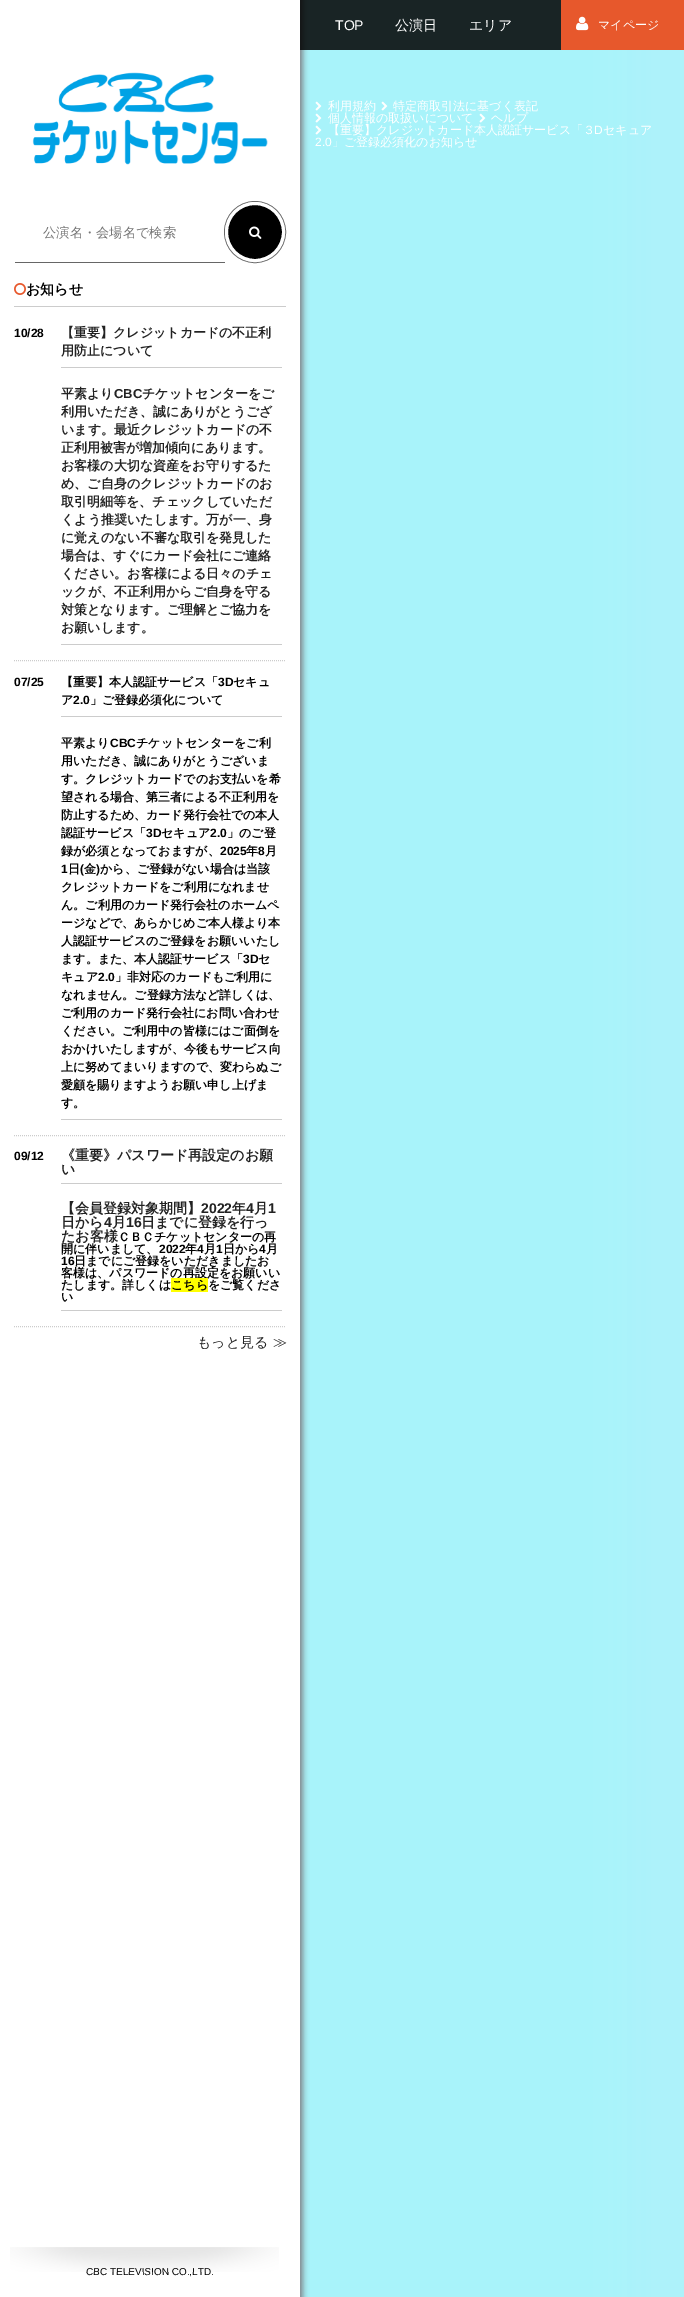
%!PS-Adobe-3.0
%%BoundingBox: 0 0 684 2297
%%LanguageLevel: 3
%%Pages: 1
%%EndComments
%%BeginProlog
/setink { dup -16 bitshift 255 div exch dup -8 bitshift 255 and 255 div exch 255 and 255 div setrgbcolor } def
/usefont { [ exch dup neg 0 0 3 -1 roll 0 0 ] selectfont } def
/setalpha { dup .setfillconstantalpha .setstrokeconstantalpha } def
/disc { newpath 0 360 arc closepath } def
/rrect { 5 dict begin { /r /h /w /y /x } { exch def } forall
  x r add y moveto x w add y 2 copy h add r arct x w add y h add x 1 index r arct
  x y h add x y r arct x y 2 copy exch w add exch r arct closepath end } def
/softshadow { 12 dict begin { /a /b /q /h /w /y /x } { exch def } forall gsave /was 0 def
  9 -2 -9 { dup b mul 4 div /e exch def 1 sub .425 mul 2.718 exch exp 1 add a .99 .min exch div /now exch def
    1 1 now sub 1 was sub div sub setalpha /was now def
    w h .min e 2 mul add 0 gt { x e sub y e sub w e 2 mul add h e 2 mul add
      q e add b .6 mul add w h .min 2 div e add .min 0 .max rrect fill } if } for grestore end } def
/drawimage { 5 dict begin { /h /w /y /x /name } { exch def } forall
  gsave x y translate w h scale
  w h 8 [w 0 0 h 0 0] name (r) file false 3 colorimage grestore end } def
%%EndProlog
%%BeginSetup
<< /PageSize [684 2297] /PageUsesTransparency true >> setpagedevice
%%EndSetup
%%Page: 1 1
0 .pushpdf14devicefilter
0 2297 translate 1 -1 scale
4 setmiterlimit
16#FFFFFF setink
0 0 684 2297 rectfill
(img1.raw) 300 0 384 2297 drawimage
16#540000 setink
-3 -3 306 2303 0 3 0.46 softshadow
16#FFFFFF setink
0 0 300 2297 rectfill
0.85 setalpha
16#000000 setink
300 0 261 50 rectfill
/LiberationSans-Regular 14 usefont
1 setalpha
16#FFFFFF setink
335 30 moveto (TOP) show
/WenQuanYiZenHei-Medium 14 usefont
395 30 moveto (公演日) show
469 30 moveto (エリア) show
16#E7582C setink
561 0 123 50 rectfill
(img2.raw) 576 16 13 15 drawimage
/WenQuanYiZenHei-Medium 12 usefont
16#FFFFFF setink
598 29 moveto (マイページ) show
(img3.raw) 315 101 7 10 drawimage
328 110 moveto (利用規約) show
(img3.raw) 381 101 7 10 drawimage
393 110 moveto (特定商取引法に基づく表記) show
(img3.raw) 315 113 7 10 drawimage
328 122 moveto (個人情報の取扱いについて) show
(img3.raw) 479 113 7 10 drawimage
491 122 moveto (ヘルプ) show
(img3.raw) 315 125 7 10 drawimage
328 134 moveto (【重要】クレジットカード本人認証サービス「３) show
/LiberationSans-Regular 12 usefont
594 134 moveto (D) show
/WenQuanYiZenHei-Medium 12 usefont
603 134 moveto (セキュア) show
/LiberationSans-Regular 12 usefont
315 146 moveto (2.0) show
/WenQuanYiZenHei-Medium 12 usefont
332 146 moveto (」ご登録必須化のお知らせ) show
(img4.raw) 32 72 236 93 drawimage
16#666666 setink
15 262 210 1 rectfill
/WenQuanYiZenHei-Medium 13.25 usefont
16#757575 setink
43 237 moveto (公演名・会場名で検索) show
16#696969 setink
255 232 30.5 disc stroke
16#000000 setink
255 232 28.5 disc gsave fill grestore
16#FFFFFF setink
3 setlinewidth
stroke
(img5.raw) 249 226 13 13 drawimage
16#CCCCCC setink
14 306 272 1 rectfill
(img6.raw) 14 283 12 12 drawimage
/WenQuanYiZenHei-Bold 14 usefont
16#000000 setink
26 294 moveto (お知らせ) show
16#CCCCCC setink
1 setlinewidth
[1 1] 0 setdash
14 660.5 moveto 286 660.5 lineto stroke
/LiberationSans-Bold 12 usefont
16#000000 setink
14 337 moveto (10/28) show
16#CCCCCC setink
61 367 221 1 rectfill
/WenQuanYiZenHei-Bold 13 usefont
16#222222 setink
61 337 moveto (【重要】クレジットカードの不正利) show
61 355 moveto (用防止について) show
16#CCCCCC setink
61 644 221 1 rectfill
16#222222 setink
61 398 moveto (平素より) show
/LiberationSans-Bold 13 usefont
114 398 moveto (CBC) show
/WenQuanYiZenHei-Bold 13 usefont
[
    [(チケットセンターをご) 142 398]
    [(利用いただき、誠にありがとうござ) 61 416]
    [(います。最近クレジットカードの不) 61 434]
    [(正利用被害が増加傾向にあります。) 61 452]
    [(お客様の大切な資産をお守りするた) 61 470]
    [(め、ご自身のクレジットカードのお) 61 488]
    [(取引明細等を、チェックしていただ) 61 506]
    [(くよう推奨いたします。万が一、身) 61 524]
    [(に覚えのない不審な取引を発見した) 61 542]
    [(場合は、すぐにカード会社にご連絡) 61 560]
    [(ください。お客様による日々のチェ) 61 578]
    [(ックが、不正利用からご自身を守る) 61 596]
    [(対策となります。ご理解とご協力を) 61 614]
    [(お願いします。) 61 632]
] { aload pop moveto show } forall
16#CCCCCC setink
14 1135.5 moveto 286 1135.5 lineto stroke
/LiberationSans-Bold 12 usefont
16#000000 setink
14 686 moveto (07/25) show
16#CCCCCC setink
61 716 221 1 rectfill
/WenQuanYiZenHei-Bold 12 usefont
16#000000 setink
61 686 moveto (【重要】本人認証サービス「) show
/LiberationSans-Bold 12 usefont
218 686 moveto (3D) show
/WenQuanYiZenHei-Bold 12 usefont
233 686 moveto (セキュ) show
61 704 moveto (ア) show
/LiberationSans-Bold 12 usefont
73 704 moveto (2.0) show
/WenQuanYiZenHei-Bold 12 usefont
90 704 moveto (」ご登録必須化について) show
16#CCCCCC setink
61 1119 221 1 rectfill
16#000000 setink
61 747 moveto (平素より) show
/LiberationSans-Bold 12 usefont
110 747 moveto (CBC) show
/WenQuanYiZenHei-Bold 12 usefont
[
    [(チケットセンターをご利) 136 747]
    [(用いただき、誠にありがとうございま) 61 765]
    [(す。クレジットカードでのお支払いを希) 61 783]
    [(望される場合、第三者による不正利用を) 61 801]
    [(防止するため、カード発行会社での本人) 61 819]
    [(認証サービス「) 61 837]
] { aload pop moveto show } forall
/LiberationSans-Bold 12 usefont
146 837 moveto (3D) show
/WenQuanYiZenHei-Bold 12 usefont
161 837 moveto (セキュア) show
/LiberationSans-Bold 12 usefont
210 837 moveto (2.0) show
/WenQuanYiZenHei-Bold 12 usefont
227 837 moveto (」のご登) show
61 855 moveto (録が必須となっておますが、) show
/LiberationSans-Bold 12 usefont
220 855 moveto (2025) show
/WenQuanYiZenHei-Bold 12 usefont
246 855 moveto (年) show
/LiberationSans-Bold 12 usefont
258 855 moveto (8) show
/WenQuanYiZenHei-Bold 12 usefont
265 855 moveto (月) show
/LiberationSans-Bold 12 usefont
61 873 moveto (1) show
/WenQuanYiZenHei-Bold 12 usefont
68 873 moveto (日) show
/LiberationSans-Bold 12 usefont
80 873 moveto (\() show
/WenQuanYiZenHei-Bold 12 usefont
84 873 moveto (金) show
/LiberationSans-Bold 12 usefont
96 873 moveto (\)) show
/WenQuanYiZenHei-Bold 12 usefont
[
    [(から、ご登録がない場合は当該) 100 873]
    [(クレジットカードをご利用になれませ) 61 891]
    [(ん。ご利用のカード発行会社のホームペ) 61 909]
    [(ージなどで、あらかじめご本人様より本) 61 927]
    [(人認証サービスのご登録をお願いいたし) 61 945]
    [(ます。また、本人認証サービス「) 61 963]
] { aload pop moveto show } forall
/LiberationSans-Bold 12 usefont
243 963 moveto (3D) show
/WenQuanYiZenHei-Bold 12 usefont
258 963 moveto (セ) show
61 981 moveto (キュア) show
/LiberationSans-Bold 12 usefont
98 981 moveto (2.0) show
/WenQuanYiZenHei-Bold 12 usefont
[
    [(」非対応のカードもご利用に) 115 981]
    [(なれません。ご登録方法など詳しくは、) 61 999]
    [(ご利用のカード発行会社にお問い合わせ) 61 1017]
    [(ください。ご利用中の皆様にはご面倒を) 61 1035]
    [(おかけいたしますが、今後もサービス向) 61 1053]
    [(上に努めてまいりますので、変わらぬご) 61 1071]
    [(愛顧を賜りますようお願い申し上げま) 61 1089]
    [(す。) 61 1107]
] { aload pop moveto show } forall
16#CCCCCC setink
14 1326.5 moveto 286 1326.5 lineto stroke
/LiberationSans-Bold 12 usefont
16#000000 setink
14 1160 moveto (09/12) show
16#CCCCCC setink
61 1183 221 1 rectfill
/WenQuanYiZenHei-Bold 14 usefont
16#222222 setink
61 1160 moveto (《重要》パスワード再設定のお願) show
61 1174 moveto (い) show
16#CCCCCC setink
61 1310 221 1 rectfill
16#222222 setink
61 1213 moveto (【会員登録対象期間】) show
/LiberationSans-Bold 14 usefont
201 1213 moveto (2022) show
/WenQuanYiZenHei-Bold 14 usefont
232 1213 moveto (年) show
/LiberationSans-Bold 14 usefont
246 1213 moveto (4) show
/WenQuanYiZenHei-Bold 14 usefont
254 1213 moveto (月) show
/LiberationSans-Bold 14 usefont
268 1213 moveto (1) show
/WenQuanYiZenHei-Bold 14 usefont
61 1227 moveto (日から) show
/LiberationSans-Bold 14 usefont
104 1227 moveto (4) show
/WenQuanYiZenHei-Bold 14 usefont
112 1227 moveto (月) show
/LiberationSans-Bold 14 usefont
126 1227 moveto (16) show
/WenQuanYiZenHei-Bold 14 usefont
141 1227 moveto (日までに登録を行っ) show
61 1241 moveto (たお客様) show
/WenQuanYiZenHei-Bold 12 usefont
16#000000 setink
118 1241 moveto (ＣＢＣチケットセンターの再) show
61 1253 moveto (開に伴いまして、) show
/LiberationSans-Bold 12 usefont
159 1253 moveto (2022) show
/WenQuanYiZenHei-Bold 12 usefont
185 1253 moveto (年) show
/LiberationSans-Bold 12 usefont
197 1253 moveto (4) show
/WenQuanYiZenHei-Bold 12 usefont
204 1253 moveto (月) show
/LiberationSans-Bold 12 usefont
216 1253 moveto (1) show
/WenQuanYiZenHei-Bold 12 usefont
223 1253 moveto (日から) show
/LiberationSans-Bold 12 usefont
259 1253 moveto (4) show
/WenQuanYiZenHei-Bold 12 usefont
266 1253 moveto (月) show
/LiberationSans-Bold 12 usefont
61 1265 moveto (16) show
/WenQuanYiZenHei-Bold 12 usefont
[
    [(日までにご登録をいただきましたお) 74 1265]
    [(客様は、パスワードの再設定をお願いい) 61 1277]
    [(たします。詳しくは) 61 1289]
] { aload pop moveto show } forall
16#FFFF00 setink
171 1278 37 14 rectfill
16#000000 setink
171 1289 moveto (こちらをご覧くださ) show
61 1301 moveto (い) show
/WenQuanYiZenHei-Medium 14 usefont
16#222222 setink
197 1347 moveto (もっと見る ≫) show
/LiberationSans-Regular 10 usefont
16#000000 setink
86 2275 moveto (CBC TELEVISION CO.,LTD.) show
(img7.raw) 10 2247 269 25 drawimage
.poppdf14devicefilter showpage
%%EOF
